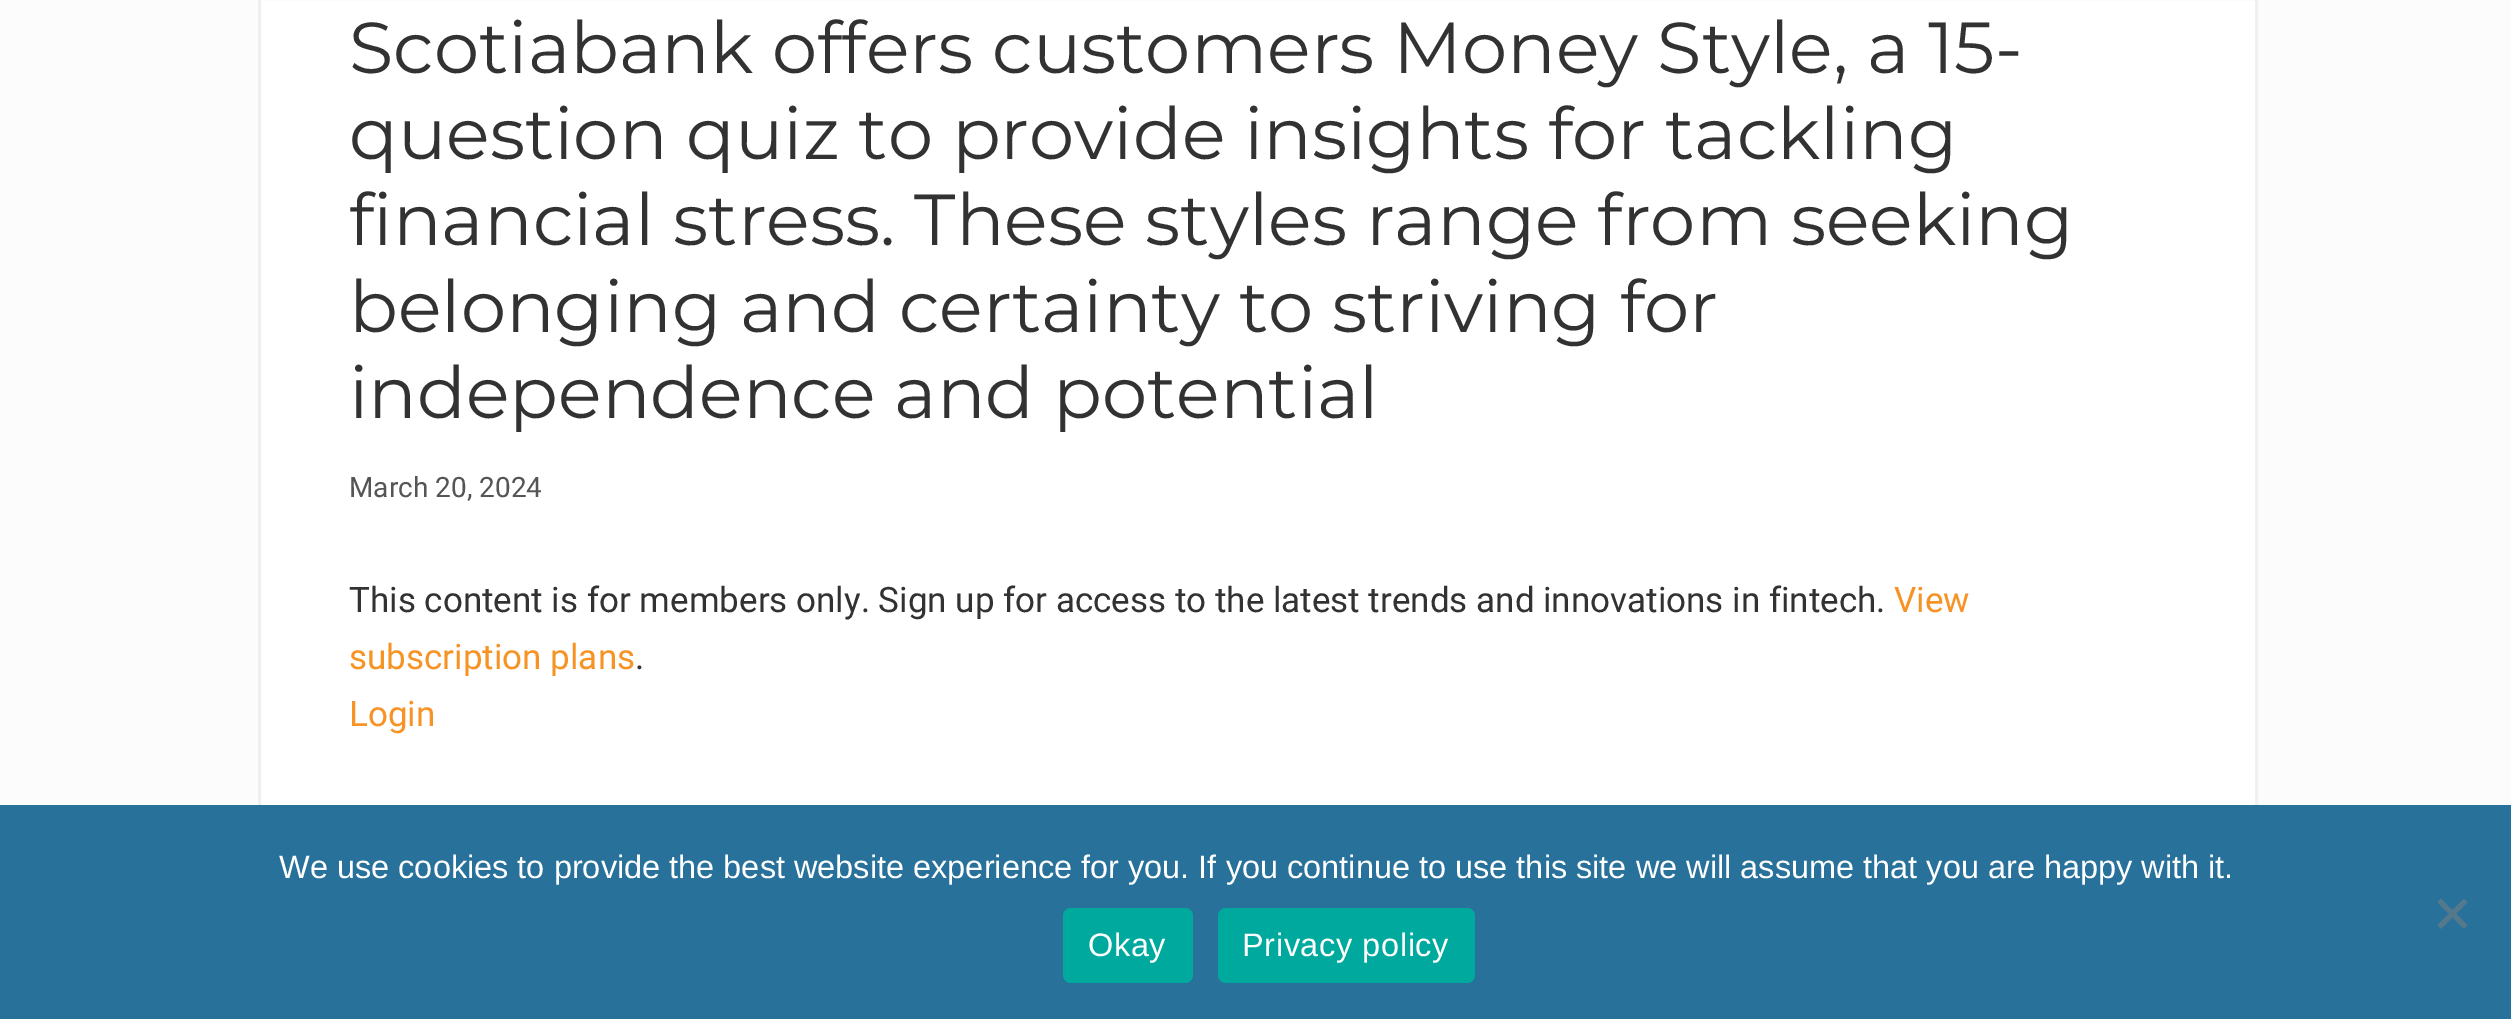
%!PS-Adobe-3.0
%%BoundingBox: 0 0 2511 1019
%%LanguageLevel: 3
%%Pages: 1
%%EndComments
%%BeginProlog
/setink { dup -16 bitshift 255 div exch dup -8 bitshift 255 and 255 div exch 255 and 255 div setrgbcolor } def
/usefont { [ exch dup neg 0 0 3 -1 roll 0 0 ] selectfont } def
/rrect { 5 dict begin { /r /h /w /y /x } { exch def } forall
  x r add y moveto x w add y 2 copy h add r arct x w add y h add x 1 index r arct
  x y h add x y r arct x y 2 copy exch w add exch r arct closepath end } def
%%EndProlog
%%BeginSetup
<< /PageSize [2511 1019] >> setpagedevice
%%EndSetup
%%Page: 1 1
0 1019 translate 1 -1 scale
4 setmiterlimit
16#FCFCFC setink
0 0 2511 1019 rectfill
16#FFFFFF setink
261 0 1994 805 rectfill
16#F0F0F0 setink
3 setlinewidth
259.5 -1.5 1997 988 rectstroke
/Montserrat-Regular 72 usefont
16#323232 setink
[
    [(Scotiabank offers customers Money Style, a 15-) 349 73]
    [(question quiz to provide insights for tackling) 349 159]
    [(financial stress. These styles range from seeking) 349 245]
    [(belonging and certainty to striving for) 349 332]
    [(independence and potential) 349 418]
] { aload pop moveto show } forall
/Roboto-Regular 28 usefont
16#555555 setink
349 497 moveto (March 20, 2024) show
/Roboto-Regular 35 usefont
16#323232 setink
349 612 moveto (This content is for members only. Sign up for access to the latest trends and innovations in fintech.) show
16#F79324 setink
1894 612 moveto (View) show
349 669 moveto (subscription plans) show
16#323232 setink
635 669 moveto (.) show
16#F79324 setink
349 726 moveto (Login) show
16#27719A setink
0 805 2511 214 rectfill
/LiberationSans-Regular 32.5 usefont
16#FFFFFF setink
279 878 moveto (We use cookies to provide the best website experience for you. If you continue to use this site we will assume that you are happy with it.) show
16#54798D setink
2464 898.5 moveto 2467.5 902.5 lineto 2441 929 lineto 2437.5 925 lineto closepath fill
2437.5 902.5 moveto 2441 898.5 lineto 2467.5 925 lineto 2464 929 lineto closepath fill
16#00A99D setink
1063 908 130 75 8 rrect fill
16#FFFFFF setink
1088 956 moveto 0.6 0 (Okay) ashow
16#00A99D setink
1218 908 257 75 8 rrect fill
16#FFFFFF setink
1242 956 moveto 0.6 0 (Privacy policy) ashow
showpage
%%EOF
